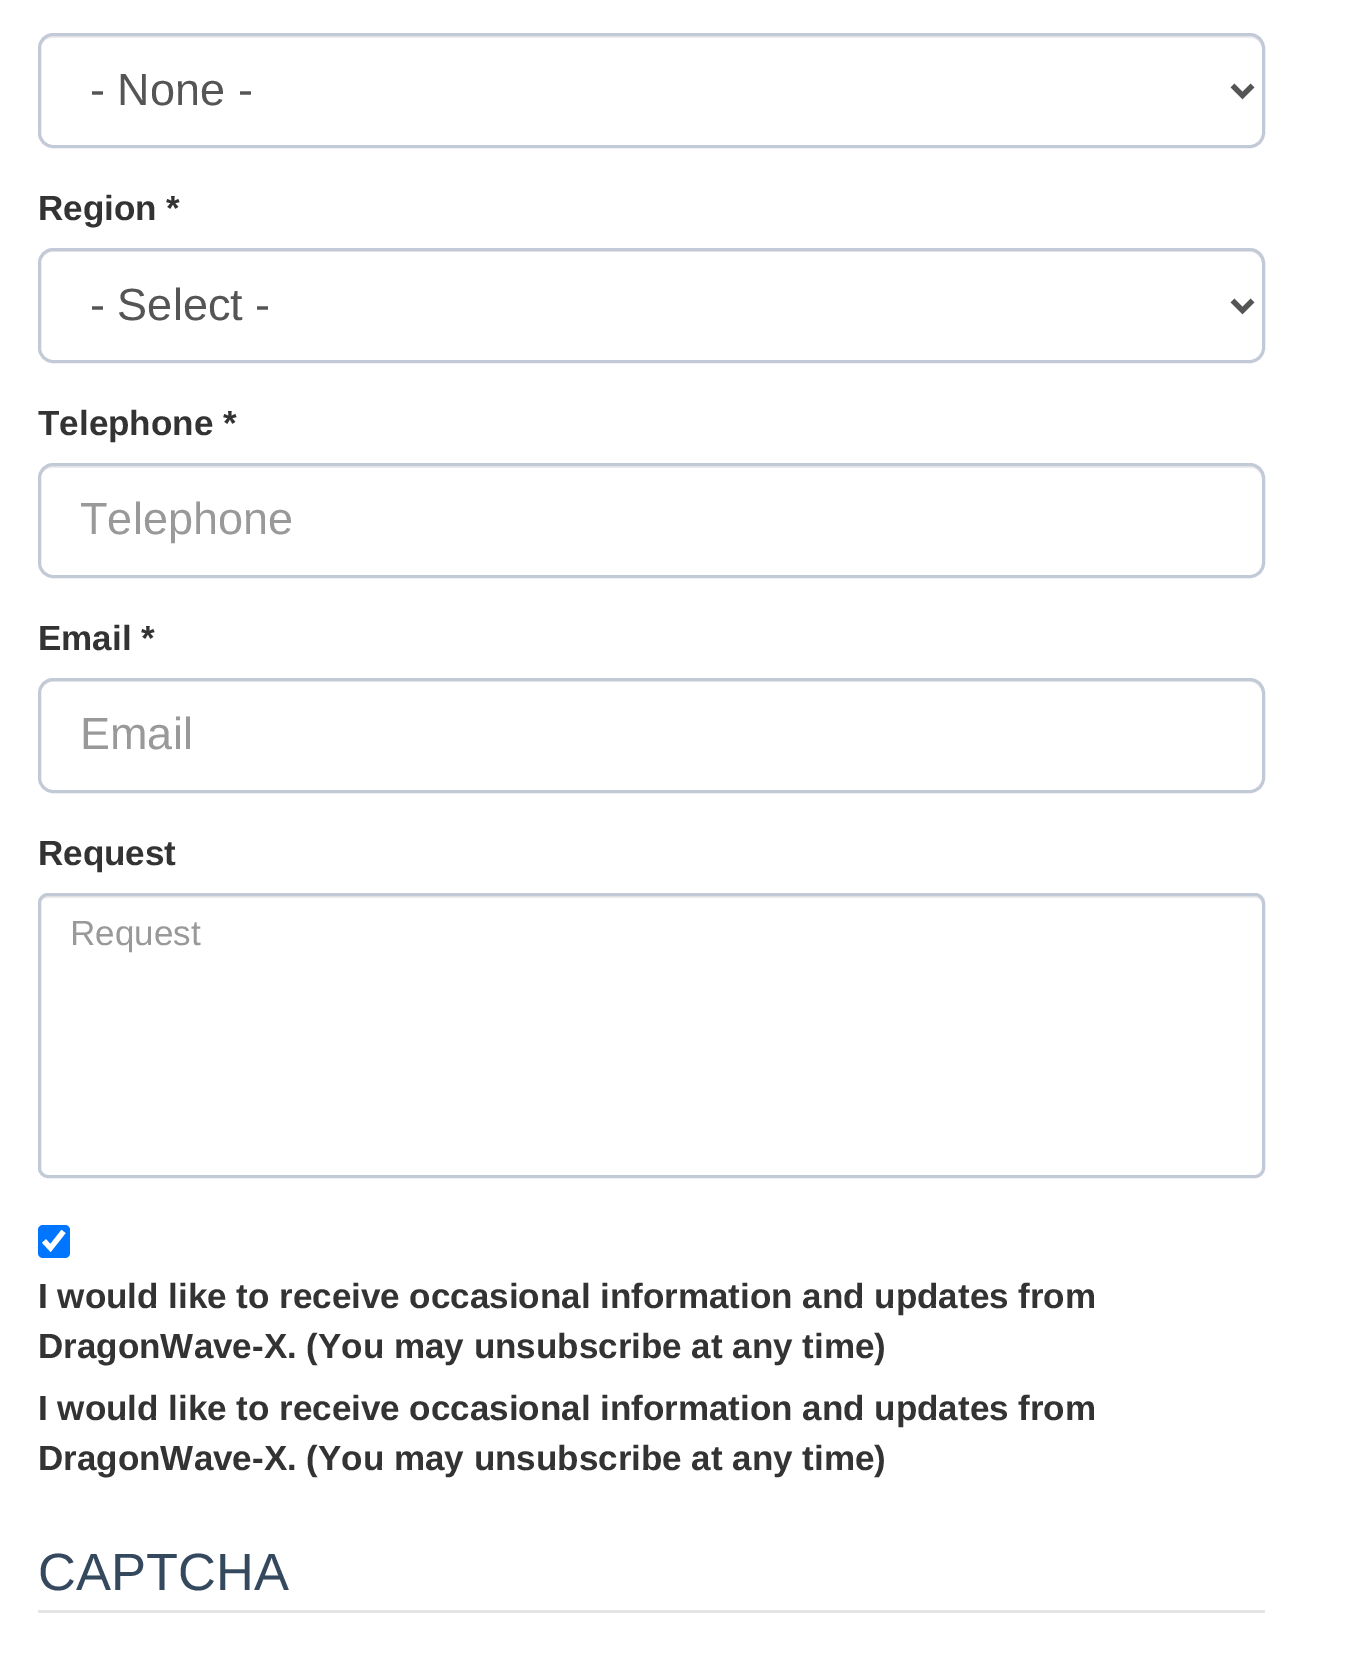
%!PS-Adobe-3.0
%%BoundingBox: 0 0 1363 1653
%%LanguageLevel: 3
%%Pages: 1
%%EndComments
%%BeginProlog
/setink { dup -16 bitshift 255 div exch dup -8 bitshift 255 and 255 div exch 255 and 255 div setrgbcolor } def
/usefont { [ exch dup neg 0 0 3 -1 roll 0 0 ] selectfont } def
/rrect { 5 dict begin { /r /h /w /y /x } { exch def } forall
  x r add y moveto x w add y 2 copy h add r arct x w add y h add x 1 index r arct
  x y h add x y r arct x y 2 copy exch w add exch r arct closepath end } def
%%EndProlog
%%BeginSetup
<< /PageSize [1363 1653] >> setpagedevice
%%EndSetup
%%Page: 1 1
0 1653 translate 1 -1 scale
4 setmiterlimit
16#FFFFFF setink
0 0 1363 1653 rectfill
16#ECECEC setink
52 38 moveto 1250 38 lineto 1257 38 1262 43 1262 50 curveto 1262 137 lineto 1263 136 1263 134 1263 132 curveto 1263 48 lineto 1263 41 1257 35 1250 35 curveto 53 35 lineto 46 35 40 41 40 48 curveto 40 50 lineto 40 43 46 38 52 38 curveto closepath fill
16#C2CAD8 setink
3 setlinewidth
39.5 34.5 1224 112 13.5 rrect stroke
16#555555 setink
5 setlinewidth
1232.5 85.5 moveto 1242.5 95.5 lineto 1252.5 85.5 lineto stroke
/LiberationSans-Regular 45 usefont
90 105 moveto (- None -) show
/LiberationSans-Bold 35 usefont
16#333333 setink
38 220 moveto (Region *) show
16#ECECEC setink
52 252 moveto 1250 252 lineto 1257 252 1262 258 1262 265 curveto 1262 353 lineto 1263 351 1263 349 1263 347 curveto 1263 263 lineto 1263 256 1257 250 1250 250 curveto 53 250 lineto 46 250 40 256 40 263 curveto 40 265 lineto 40 258 46 252 52 252 curveto closepath fill
16#C2CAD8 setink
3 setlinewidth
39.5 249.5 1224 112 13.5 rrect stroke
16#555555 setink
5 setlinewidth
1232.5 300.5 moveto 1242.5 310.5 lineto 1252.5 300.5 lineto stroke
/LiberationSans-Regular 45 usefont
90 320 moveto (- Select -) show
/LiberationSans-Bold 35 usefont
16#333333 setink
38 435 moveto (Telephone *) show
16#ECECEC setink
52 468 moveto 1250 468 lineto 1257 468 1262 473 1262 480 curveto 1262 567 lineto 1263 566 1263 564 1263 562 curveto 1263 478 lineto 1263 471 1257 465 1250 465 curveto 53 465 lineto 46 465 40 471 40 478 curveto 40 480 lineto 40 473 46 468 52 468 curveto closepath fill
16#C2CAD8 setink
3 setlinewidth
39.5 464.5 1224 112 13.5 rrect stroke
/LiberationSans-Regular 45 usefont
16#999999 setink
80 534 moveto (Telephone) show
/LiberationSans-Bold 35 usefont
16#333333 setink
38 650 moveto (Email *) show
16#ECECEC setink
52 682 moveto 1250 682 lineto 1257 682 1262 688 1262 695 curveto 1262 783 lineto 1263 781 1263 779 1263 777 curveto 1263 693 lineto 1263 686 1257 680 1250 680 curveto 53 680 lineto 46 680 40 686 40 693 curveto 40 695 lineto 40 688 46 682 52 682 curveto closepath fill
16#C2CAD8 setink
39.5 679.5 1224 112 13.5 rrect stroke
/LiberationSans-Regular 45 usefont
16#999999 setink
80 749 moveto (Email) show
/LiberationSans-Bold 35 usefont
16#333333 setink
38 865 moveto (Request) show
16#ECECEC setink
48 898 moveto 1255 898 lineto 1259 898 1262 901 1262 905 curveto 1262 1171 lineto 1263 1170 1263 1168 1263 1167 curveto 1263 903 lineto 1263 899 1259 895 1255 895 curveto 48 895 lineto 44 895 40 899 40 903 curveto 40 905 lineto 40 901 43 898 48 898 curveto closepath fill
16#C2CAD8 setink
39.5 894.5 1224 282 8.5 rrect stroke
/LiberationSans-Regular 35 usefont
16#999999 setink
70 945 moveto (Request) show
16#0075FF setink
38 1225 32 33 5 rrect fill
16#FFFFFF setink
5.2 setlinewidth
44 1241 moveto 50.5 1248 lineto 63.5 1231.5 lineto stroke
/LiberationSans-Bold 35 usefont
16#333333 setink
[
    [(I would like to receive occasional information and updates from) 38 1308]
    [(DragonWave-X. \(You may unsubscribe at any time\)) 38 1358]
    [(I would like to receive occasional information and updates from) 38 1420]
    [(DragonWave-X. \(You may unsubscribe at any time\)) 38 1470]
] { aload pop moveto show } forall
16#E5E5E5 setink
38 1610 1227 3 rectfill
/LiberationSans-Regular 52.5 usefont
16#34495E setink
38 1590 moveto (CAPTCHA) show
showpage
%%EOF
